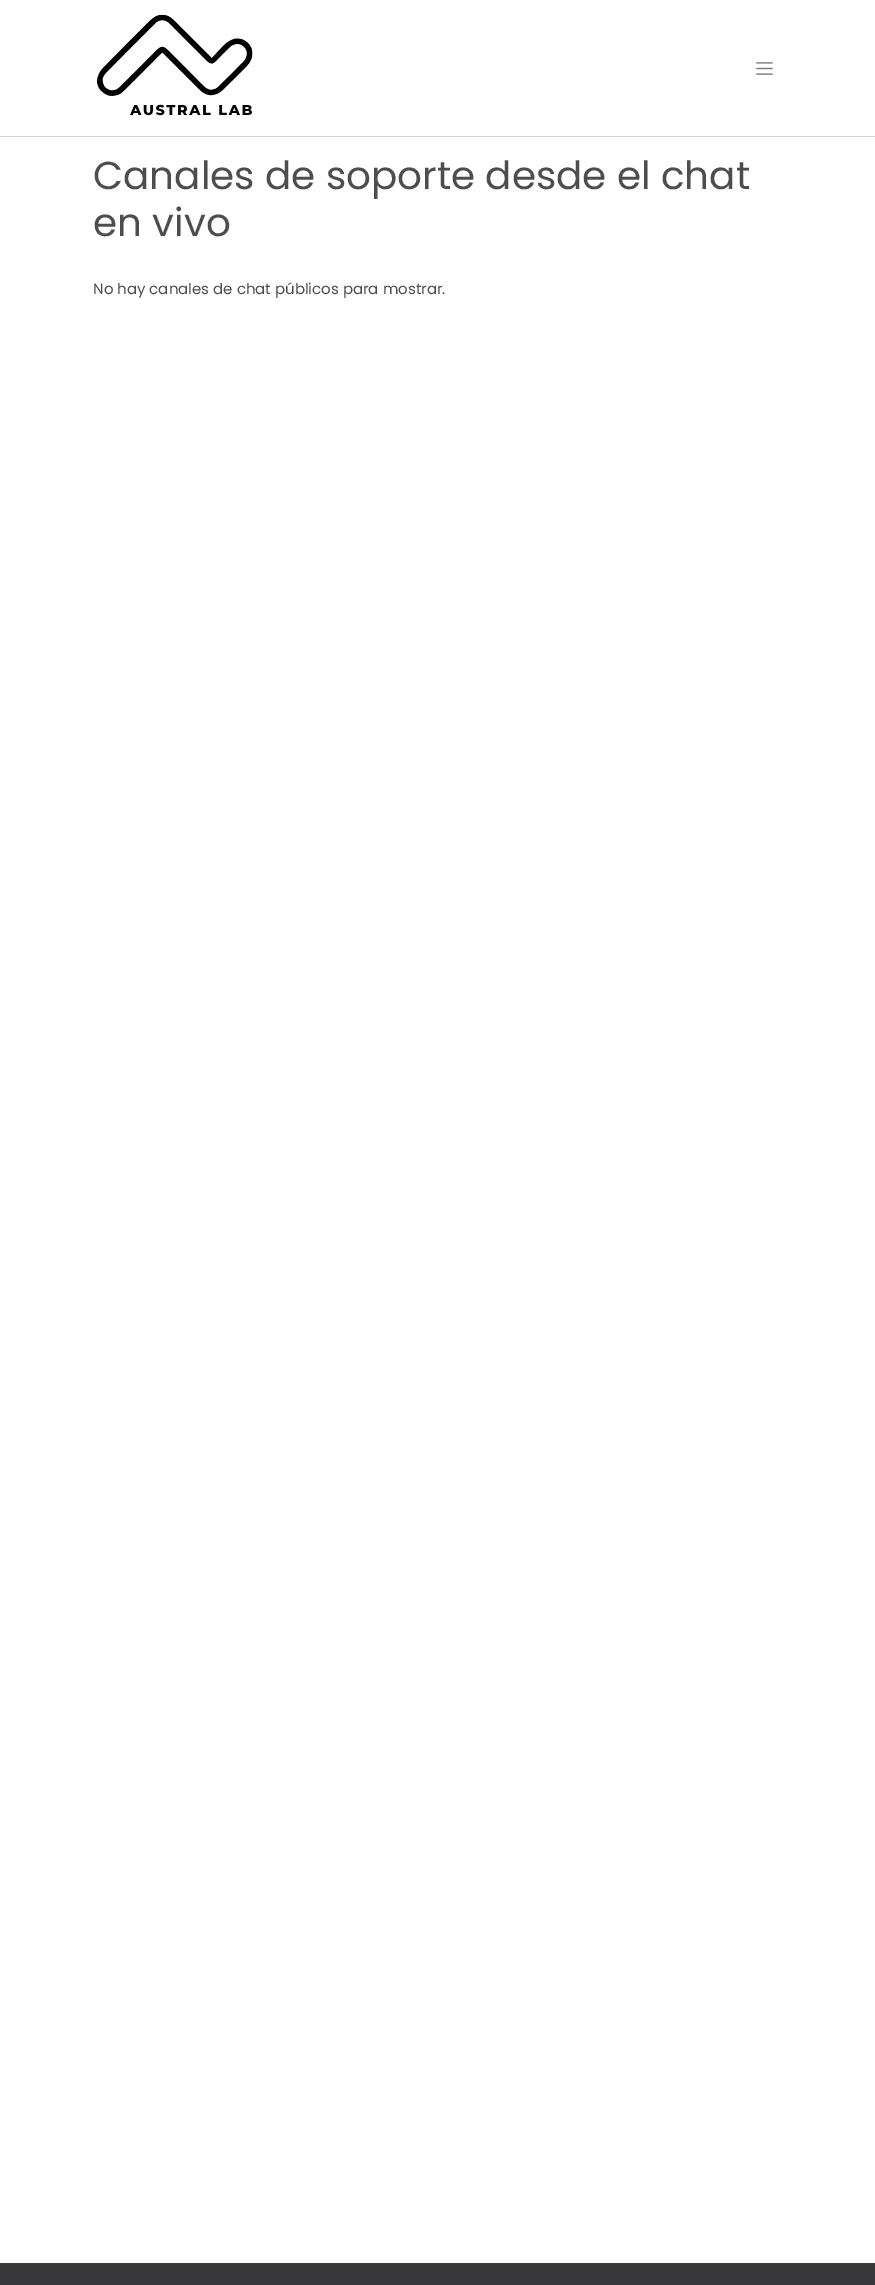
%!PS-Adobe-3.0
%%BoundingBox: 0 0 875 2285
%%LanguageLevel: 3
%%Pages: 1
%%EndComments
%%BeginProlog
/setink { dup -16 bitshift 255 div exch dup -8 bitshift 255 and 255 div exch 255 and 255 div setrgbcolor } def
/usefont { [ exch dup neg 0 0 3 -1 roll 0 0 ] selectfont } def
/drawimage { 5 dict begin { /h /w /y /x /name } { exch def } forall
  gsave x y translate w h scale
  w h 8 [w 0 0 h 0 0] name (r) file false 3 colorimage grestore end } def
%%EndProlog
%%BeginSetup
<< /PageSize [875 2285] >> setpagedevice
%%EndSetup
%%Page: 1 1
0 2285 translate 1 -1 scale
4 setmiterlimit
16#FFFFFF setink
0 0 875 2285 rectfill
16#CED4DA setink
0 136 875 1 rectfill
(img1.raw) 97 14 156 102 drawimage
(img2.raw) 756 62 17 13 drawimage
/Poppins-Regular 38.9 usefont
16#4D4D4D setink
93 189 moveto (Canales de soporte desde el chat) show
93 236 moveto (en vivo) show
/Poppins-Regular 15 usefont
93 294 moveto (No hay canales de chat públicos para mostrar.) show
16#38383B setink
0 2263 875 22 rectfill
showpage
%%EOF
